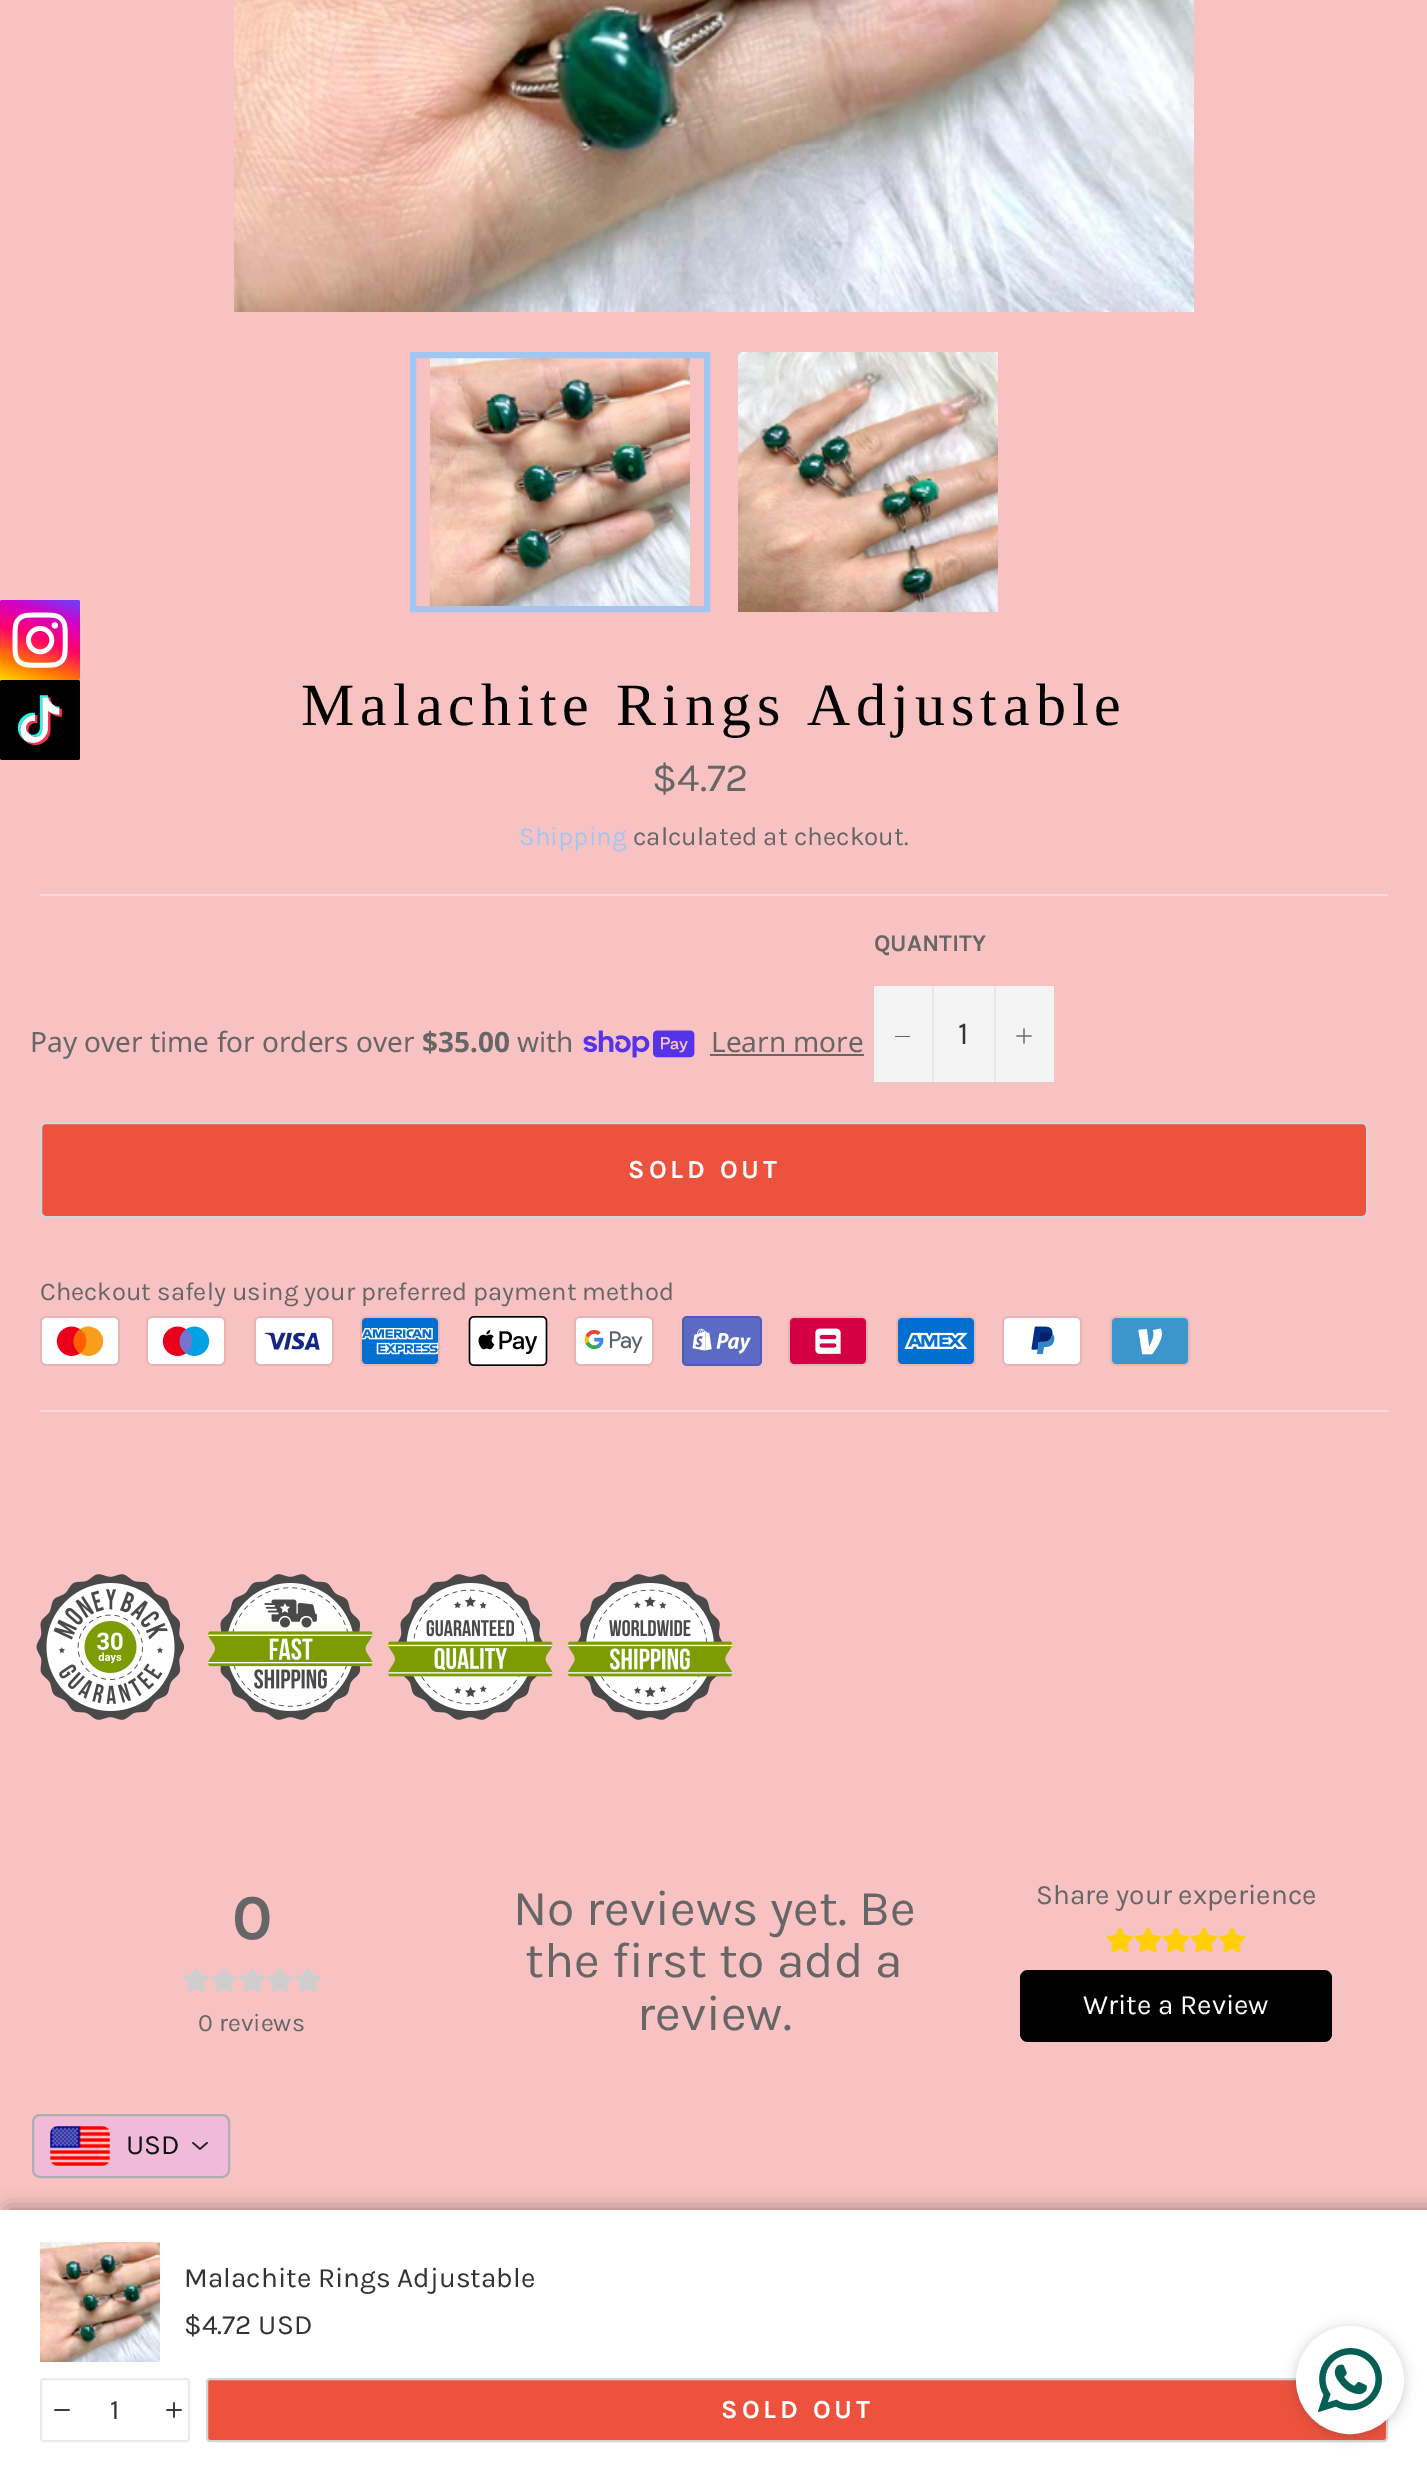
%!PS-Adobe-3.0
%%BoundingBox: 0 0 1427 2474
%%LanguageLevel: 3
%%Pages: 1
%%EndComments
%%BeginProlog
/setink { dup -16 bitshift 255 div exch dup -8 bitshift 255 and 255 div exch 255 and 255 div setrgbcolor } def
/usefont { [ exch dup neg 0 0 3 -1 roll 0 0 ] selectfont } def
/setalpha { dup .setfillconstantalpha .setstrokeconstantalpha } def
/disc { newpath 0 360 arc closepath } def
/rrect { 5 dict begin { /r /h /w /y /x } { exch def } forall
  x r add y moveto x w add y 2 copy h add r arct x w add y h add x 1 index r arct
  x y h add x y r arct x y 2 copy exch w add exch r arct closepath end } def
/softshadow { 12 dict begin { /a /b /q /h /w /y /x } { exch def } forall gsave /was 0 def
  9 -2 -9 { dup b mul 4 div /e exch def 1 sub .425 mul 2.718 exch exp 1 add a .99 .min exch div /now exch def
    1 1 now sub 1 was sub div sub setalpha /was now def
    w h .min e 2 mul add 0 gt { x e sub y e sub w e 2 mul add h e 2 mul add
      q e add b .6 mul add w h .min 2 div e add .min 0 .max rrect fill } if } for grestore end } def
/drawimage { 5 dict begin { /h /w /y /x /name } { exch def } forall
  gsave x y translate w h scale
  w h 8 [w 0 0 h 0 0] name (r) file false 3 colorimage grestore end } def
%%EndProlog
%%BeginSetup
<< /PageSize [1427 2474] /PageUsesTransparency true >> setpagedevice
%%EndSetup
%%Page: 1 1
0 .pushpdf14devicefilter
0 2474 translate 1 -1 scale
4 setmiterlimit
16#F9C2C2 setink
0 0 1427 2474 rectfill
(img1.raw) 0 600 80 80 drawimage
(img2.raw) 0 680 80 80 drawimage
(img3.raw) 234 0 960 312 drawimage
(img4.raw) 430 358 260 248 drawimage
16#A1C6F1 setink
6 setlinewidth
413 355 294 254 rectstroke
(img5.raw) 738 352 260 260 drawimage
/LiberationSerif-Regular 60 usefont
16#030303 setink
301 725 moveto 6 0 (Malachite Rings Adjustable) ashow
/Karla-Regular 40 usefont
16#666666 setink
652 791 moveto ($4.72) show
/Karla-Regular 26 usefont
16#A1C6F1 setink
519 845 moveto (Shipping) show
16#666666 setink
633 845 moveto (calculated at checkout.) show
16#F9DADA setink
40 894 1348 2 rectfill
/NotoSans-Regular 28 usefont
16#666666 setink
30 1052 moveto (Pay over time for orders over) show
/NotoSans-Bold 28 usefont
422 1052 moveto ($35.00) show
/NotoSans-Regular 28 usefont
517 1052 moveto (with) show
(img6.raw) 583 1030 112 28 drawimage
711 1052 moveto (Learn more) show
710 1054 154 2 rectfill
/Karla-Bold 24 usefont
874 951 moveto (QUANTITY) show
[
    [874 986 180 96 16#F4F4F4]
    [932 986 2 96 16#E7E7E7]
    [895 1036 15 1 16#666666]
] { aload pop setink rectfill } forall
/Karla-Regular 32 usefont
16#333333 setink
958 1044 moveto (1) show
16#E7E7E7 setink
994 986 2 96 rectfill
(img7.raw) 1016 1028 16 16 drawimage
16#EC523E setink
41 1123 1326 94 5 rrect gsave fill grestore
16#D5D5D5 setink
2 setlinewidth
stroke
/Karla-Bold 26 usefont
16#FFFFFF setink
628 1178 moveto 4 0 (SOLD OUT) ashow
/Karla-Regular 25.6 usefont
16#666666 setink
40 1300 moveto (Checkout safely using your preferred payment method) show
(img8.raw) 40 1316 80 50 drawimage
(img9.raw) 146 1316 80 50 drawimage
(img10.raw) 254 1316 80 50 drawimage
(img11.raw) 360 1316 80 50 drawimage
(img12.raw) 468 1316 80 50 drawimage
(img13.raw) 574 1316 80 50 drawimage
(img14.raw) 682 1316 80 50 drawimage
(img15.raw) 788 1316 80 50 drawimage
(img16.raw) 896 1316 80 50 drawimage
(img17.raw) 1002 1316 80 50 drawimage
(img18.raw) 1110 1316 80 50 drawimage
16#F9DADA setink
40 1410 1348 2 rectfill
(img19.raw) 36 1574 149 146 drawimage
(img20.raw) 208 1574 165 146 drawimage
(img21.raw) 388 1574 165 146 drawimage
(img22.raw) 567 1574 166 146 drawimage
/Karla-Bold 64 usefont
16#666666 setink
232 1939 moveto (0) show
(img23.raw) 183 1967 26 26 drawimage
(img23.raw) 211 1967 26 26 drawimage
(img23.raw) 239 1967 26 26 drawimage
(img23.raw) 267 1967 26 26 drawimage
(img23.raw) 295 1967 26 26 drawimage
/Karla-Regular 25 usefont
198 2031 moveto (0 reviews) show
/Karla-Regular 50 usefont
[
    [(No reviews yet. Be) 513 1925]
    [(the first to add a) 525 1977]
    [(review.) 637 2030]
] { aload pop moveto show } forall
/Karla-Regular 28 usefont
1036 1904 moveto (Share your experience) show
(img23.raw) 1107 1927 26 26 drawimage
(img23.raw) 1135 1927 26 26 drawimage
(img23.raw) 1163 1927 26 26 drawimage
(img23.raw) 1191 1927 26 26 drawimage
(img23.raw) 1219 1927 26 26 drawimage
(img24.raw) 1107 1927 26 26 drawimage
(img24.raw) 1135 1927 26 26 drawimage
(img24.raw) 1163 1927 26 26 drawimage
(img24.raw) 1191 1927 26 26 drawimage
(img24.raw) 1219 1927 26 26 drawimage
16#000000 setink
1020 1970 312 72 8 rrect fill
16#FFFFFF setink
1083 2014 moveto (Write a Review) show
16#F1BAD9 setink
33 2115 196 62 7 rrect gsave fill grestore
16#AEAEAE setink
stroke
(img25.raw) 50 2126 60 40 drawimage
16#111111 setink
126 2154 moveto (USD) show
(img26.raw) 192 2142 16 8 drawimage
16#000000 setink
8 2210 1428 264 0 10 0.4 softshadow
16#FFFFFF setink
0 2210 1427 264 rectfill
(img27.raw) 40 2242 120 120 drawimage
16#333333 setink
184 2287 moveto (Malachite Rings Adjustable) show
184 2334 moveto ($4.72 USD) show
16#EAEAEA setink
41 2379 148 62 3 rrect stroke
(img28.raw) 54 2409 16 2 drawimage
16#333333 setink
110 2419 moveto (1) show
(img29.raw) 166 2402 16 16 drawimage
16#EC523E setink
207 2379 1180 62 3 rrect gsave fill grestore
16#D5D5D5 setink
stroke
/Karla-Bold 26 usefont
16#FFFFFF setink
721 2418 moveto 4 0 (SOLD OUT) ashow
16#1B1B1B setink
1296 2328 108 108 54 6 0.2 softshadow
16#FFFFFF setink
1350 2380 53 disc gsave fill grestore
stroke
(img30.raw) 1318 2348 64 64 drawimage
.poppdf14devicefilter showpage
%%EOF
